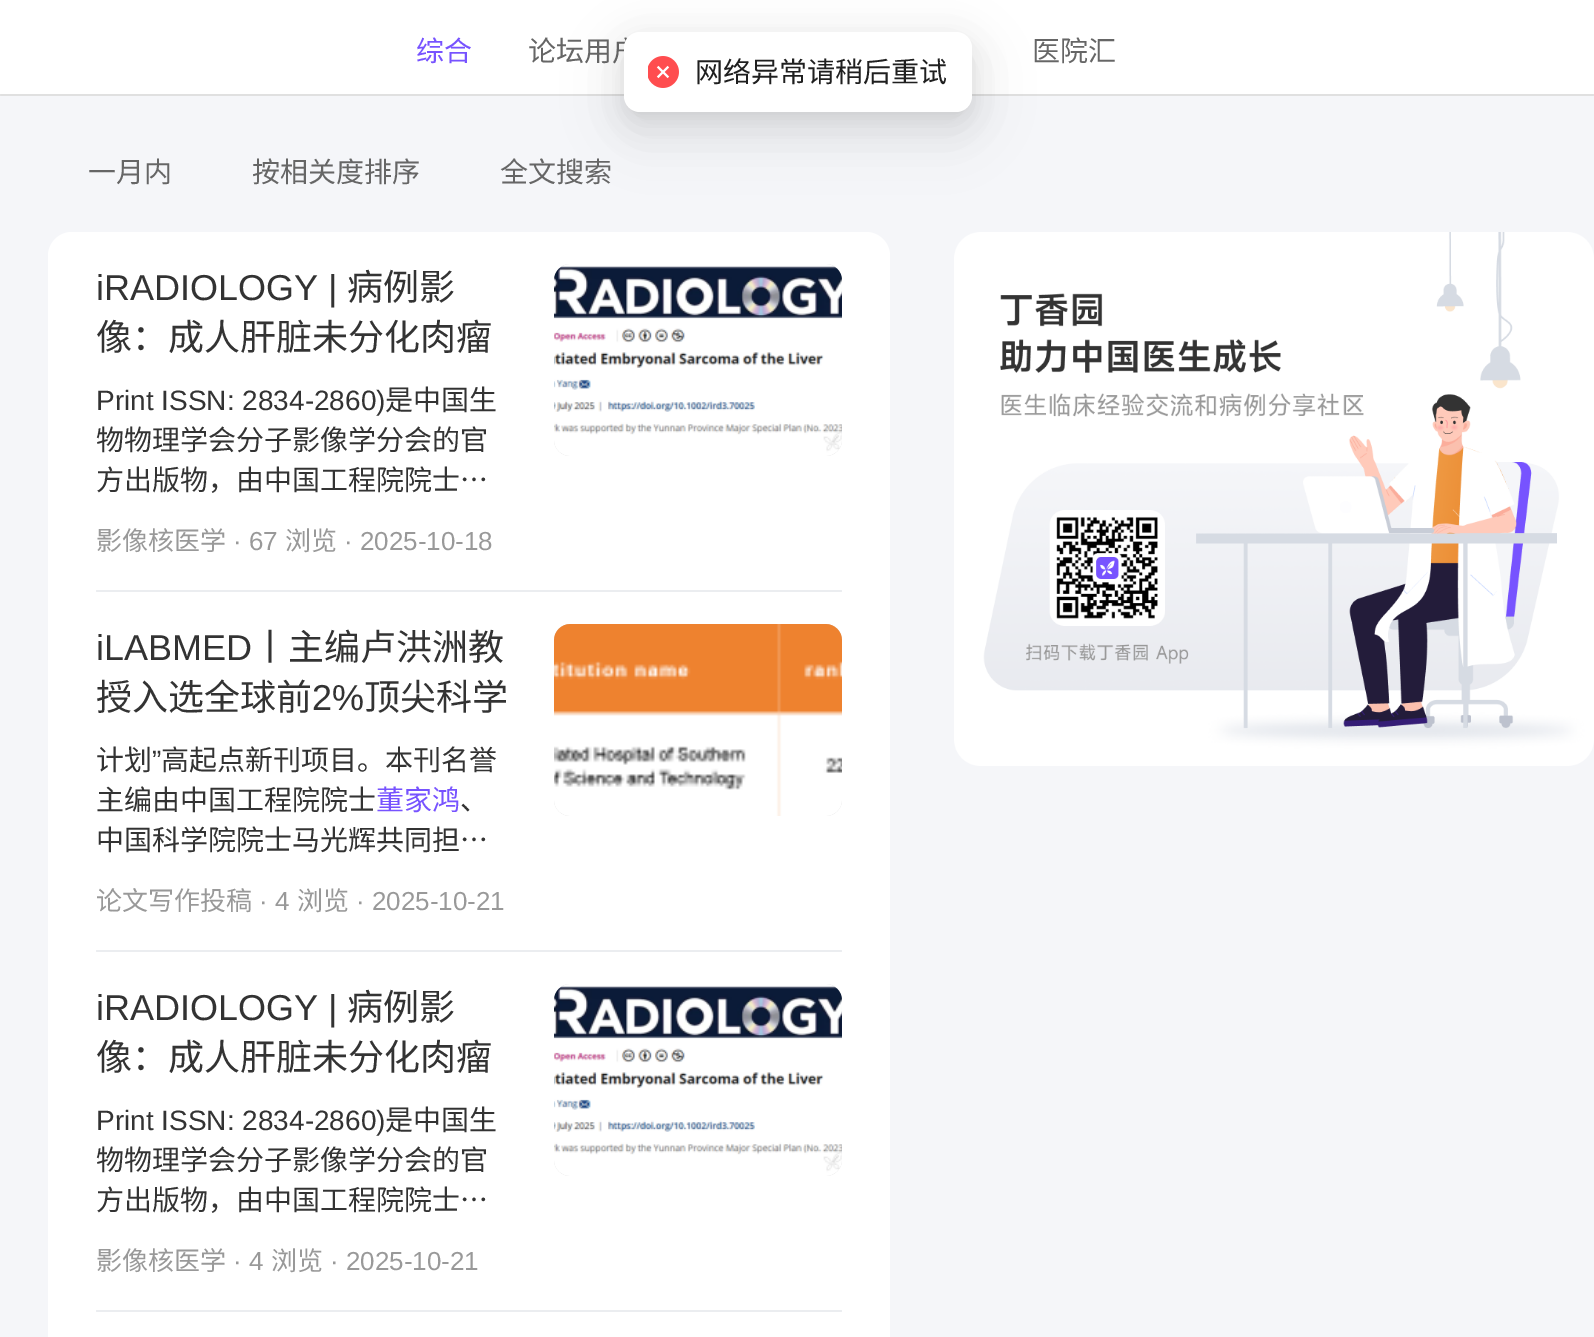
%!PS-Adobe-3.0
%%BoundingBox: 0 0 1594 1337
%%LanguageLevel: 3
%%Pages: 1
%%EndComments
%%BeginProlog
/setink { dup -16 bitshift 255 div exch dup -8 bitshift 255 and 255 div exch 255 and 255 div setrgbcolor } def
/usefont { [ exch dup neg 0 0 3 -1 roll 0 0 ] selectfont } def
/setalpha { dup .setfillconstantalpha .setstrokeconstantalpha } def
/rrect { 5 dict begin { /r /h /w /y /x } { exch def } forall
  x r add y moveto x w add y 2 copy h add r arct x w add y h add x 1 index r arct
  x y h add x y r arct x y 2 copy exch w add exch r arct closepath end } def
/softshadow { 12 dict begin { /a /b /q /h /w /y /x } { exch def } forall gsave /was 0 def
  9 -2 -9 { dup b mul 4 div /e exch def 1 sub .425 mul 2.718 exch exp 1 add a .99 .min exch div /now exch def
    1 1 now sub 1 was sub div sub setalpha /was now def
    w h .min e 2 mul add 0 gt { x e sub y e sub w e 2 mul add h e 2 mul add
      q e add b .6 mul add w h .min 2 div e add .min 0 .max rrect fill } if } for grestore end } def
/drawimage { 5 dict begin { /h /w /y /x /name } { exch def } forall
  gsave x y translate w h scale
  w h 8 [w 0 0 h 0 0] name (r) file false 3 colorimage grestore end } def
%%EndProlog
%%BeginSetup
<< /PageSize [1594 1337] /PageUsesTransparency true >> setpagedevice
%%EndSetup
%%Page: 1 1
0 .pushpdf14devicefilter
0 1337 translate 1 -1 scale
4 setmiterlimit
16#FFFFFF setink
0 0 1594 1337 rectfill
/NotoSansCJKSC-Regular 28 usefont
16#7753FF setink
416 61 moveto (综合) show
16#666666 setink
528 61 moveto (论坛用户) show
1032 61 moveto (医院汇) show
16#E0E0E0 setink
0 94 1594 2 1 rrect fill
16#F5F6F9 setink
0 96 1594 1241 rectfill
16#666666 setink
[
    [(一月内) 88 182]
    [(按相关度排序) 252 182]
    [(全文搜索) 500 182]
] { aload pop moveto show } forall
16#FFFFFF setink
48 232 842 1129 24 rrect fill
/LiberationSans-Regular 36 usefont
16#333333 setink
96 300 moveto (iRADIOLOGY |) show
/NotoSansCJKSC-Regular 36 usefont
347 300 moveto (病例影) show
96 350 moveto (像：成人肝脏未分化肉瘤) show
/LiberationSans-Regular 28 usefont
96 410 moveto (Print ISSN: 2834-2860\)) show
/NotoSansCJKSC-Regular 28 usefont
[
    [(是中国生) 385 410]
    [(物物理学会分子影像学分会的官) 96 450]
    [(方出版物，由中国工程院院士…) 96 490]
] { aload pop moveto show } forall
/NotoSansCJKSC-Regular 26 usefont
16#999999 setink
96 550 moveto (影像核医学) show
/LiberationSans-Regular 26 usefont
233 550 moveto (· 67) show
/NotoSansCJKSC-Regular 26 usefont
285 550 moveto (浏览) show
/LiberationSans-Regular 26 usefont
344 550 moveto (· 2025-10-18) show
16#D9D9D9 setink
554 264 288 192 16 rrect fill
(img1.raw) 554 264 288 192 drawimage
16#EBEDF0 setink
96 590 746 2 1 rrect fill
/LiberationSans-Regular 36 usefont
16#333333 setink
96 660 moveto (iLABMED) show
/NotoSansCJKSC-Regular 36 usefont
252 660 moveto (丨主编卢洪洲教) show
96 710 moveto (授入选全球前) show
/LiberationSans-Regular 36 usefont
312 710 moveto (2%) show
/NotoSansCJKSC-Regular 36 usefont
364 710 moveto (顶尖科学) show
/NotoSansCJKSC-Regular 28 usefont
96 770 moveto (计划) show
/LiberationSans-Regular 28 usefont
152 770 moveto (”) show
/NotoSansCJKSC-Regular 28 usefont
161 770 moveto (高起点新刊项目。本刊名誉) show
96 810 moveto (主编由中国工程院院士) show
16#7753FF setink
376 810 moveto (董家鸿) show
16#333333 setink
460 810 moveto (、) show
96 850 moveto (中国科学院院士马光辉共同担…) show
/NotoSansCJKSC-Regular 26 usefont
16#999999 setink
96 910 moveto (论文写作投稿) show
/LiberationSans-Regular 26 usefont
259 910 moveto (· 4) show
/NotoSansCJKSC-Regular 26 usefont
297 910 moveto (浏览) show
/LiberationSans-Regular 26 usefont
356 910 moveto (· 2025-10-21) show
16#D9D9D9 setink
554 624 288 192 16 rrect fill
(img2.raw) 554 624 288 192 drawimage
16#EBEDF0 setink
96 950 746 2 1 rrect fill
/LiberationSans-Regular 36 usefont
16#333333 setink
96 1020 moveto (iRADIOLOGY |) show
/NotoSansCJKSC-Regular 36 usefont
347 1020 moveto (病例影) show
96 1070 moveto (像：成人肝脏未分化肉瘤) show
/LiberationSans-Regular 28 usefont
96 1130 moveto (Print ISSN: 2834-2860\)) show
/NotoSansCJKSC-Regular 28 usefont
[
    [(是中国生) 385 1130]
    [(物物理学会分子影像学分会的官) 96 1170]
    [(方出版物，由中国工程院院士…) 96 1210]
] { aload pop moveto show } forall
/NotoSansCJKSC-Regular 26 usefont
16#999999 setink
96 1270 moveto (影像核医学) show
/LiberationSans-Regular 26 usefont
233 1270 moveto (· 4) show
/NotoSansCJKSC-Regular 26 usefont
271 1270 moveto (浏览) show
/LiberationSans-Regular 26 usefont
330 1270 moveto (· 2025-10-21) show
16#D9D9D9 setink
554 984 288 192 16 rrect fill
(img1.raw) 554 984 288 192 drawimage
16#EBEDF0 setink
96 1310 746 2 1 rrect fill
(img3.raw) 954 232 640 534 drawimage
16#000000 setink
608 34 380 112 32 28 0.05 softshadow
632 46 332 64 8 6 0.12 softshadow
624 44 348 80 16 16 0.08 softshadow
16#FFFFFF setink
624 32 348 80 16 rrect fill
(img4.raw) 648 56 31 32 drawimage
/NotoSansCJKSC-Regular 28 usefont
16#1F1F1F setink
695 82 moveto (网络异常请稍后重试) show
.poppdf14devicefilter showpage
%%EOF
